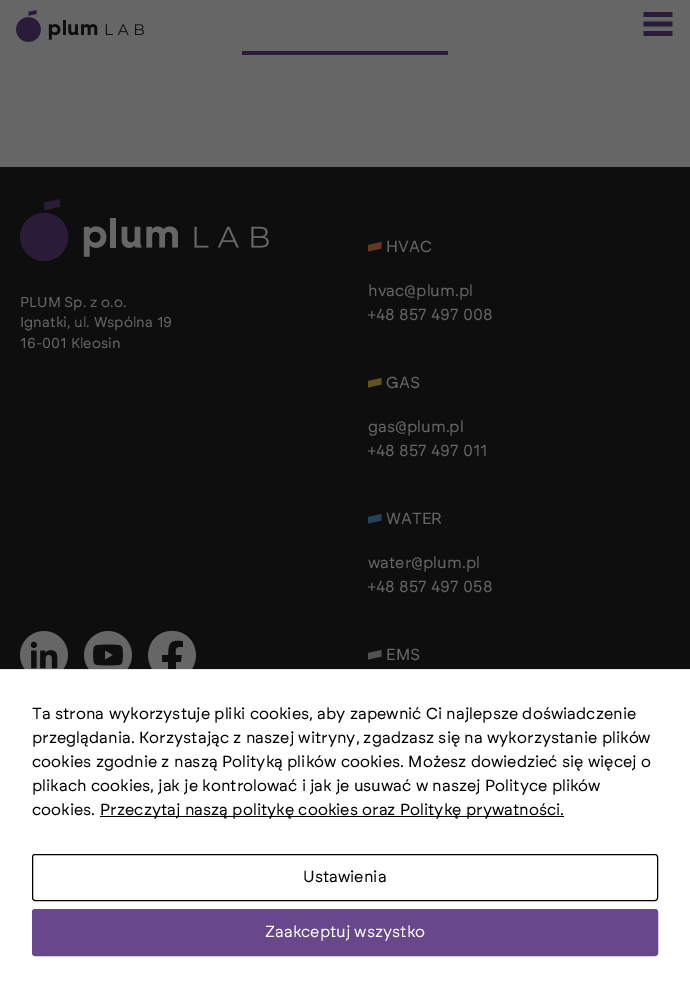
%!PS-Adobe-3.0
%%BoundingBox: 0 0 690 988
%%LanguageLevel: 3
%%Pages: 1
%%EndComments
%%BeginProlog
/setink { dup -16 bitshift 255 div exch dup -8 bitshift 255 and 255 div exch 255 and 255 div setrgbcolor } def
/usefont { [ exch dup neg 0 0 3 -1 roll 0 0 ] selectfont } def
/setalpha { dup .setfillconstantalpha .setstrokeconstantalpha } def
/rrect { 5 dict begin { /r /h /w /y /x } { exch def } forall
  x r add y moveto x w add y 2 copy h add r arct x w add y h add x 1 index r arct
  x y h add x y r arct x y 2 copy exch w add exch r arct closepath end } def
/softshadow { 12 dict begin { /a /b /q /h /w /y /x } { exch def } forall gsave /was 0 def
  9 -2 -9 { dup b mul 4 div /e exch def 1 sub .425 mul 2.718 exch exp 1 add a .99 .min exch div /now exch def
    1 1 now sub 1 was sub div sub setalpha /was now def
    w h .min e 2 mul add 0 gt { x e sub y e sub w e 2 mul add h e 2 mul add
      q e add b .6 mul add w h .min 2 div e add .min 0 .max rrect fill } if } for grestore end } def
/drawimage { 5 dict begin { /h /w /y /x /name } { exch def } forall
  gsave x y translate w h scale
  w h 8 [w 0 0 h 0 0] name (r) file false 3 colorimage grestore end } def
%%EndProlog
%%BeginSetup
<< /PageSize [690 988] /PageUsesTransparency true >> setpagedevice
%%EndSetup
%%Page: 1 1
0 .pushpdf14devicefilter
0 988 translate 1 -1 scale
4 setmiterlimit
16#666666 setink
0 0 690 988 rectfill
16#2A1C38 setink
242 51 206 4 rectfill
16#000000 setink
0 0 690 48 0 5 0.1 softshadow
16#666666 setink
0 0 690 51 rectfill
(img1.raw) 16 10 128 32 drawimage
16#2A1C38 setink
4.8 setlinewidth
643.5 14.5 moveto 672.5 14.5 lineto 643.5 24 moveto 672.5 24 lineto 643.5 33.5 moveto 672.5 33.5 lineto stroke
16#0E0E0E setink
0 167 690 502 rectfill
(img2.raw) 20 199 249 62 drawimage
/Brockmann-Regular 14.4 usefont
16#666666 setink
[
    [(PLUM Sp. z o.o.) 20 307]
    [(Ignatki, ul. Wspólna 19) 20 327]
    [(16-001 Kleosin) 20 348]
] { aload pop moveto show } forall
16#663821 setink
381.5 242 moveto 368 245 lineto 368 251.5 lineto 381.5 248.5 lineto closepath fill
/Brockmann-Regular 16 usefont
16#666666 setink
[
    [(HVAC) 386 252]
    [(hvac@plum.pl) 368 296]
    [(+48 857 497 008) 368 320]
] { aload pop moveto show } forall
16#60541B setink
381.5 378 moveto 368 381 lineto 368 387.5 lineto 381.5 384.5 lineto closepath fill
16#666666 setink
[
    [(GAS) 386 388]
    [(gas@plum.pl) 368 432]
    [(+48 857 497 011) 368 456]
] { aload pop moveto show } forall
16#24445C setink
381.5 514 moveto 368 517 lineto 368 523.5 lineto 381.5 520.5 lineto closepath fill
16#666666 setink
[
    [(WATER) 386 524]
    [(water@plum.pl) 368 568]
    [(+48 857 497 058) 368 592]
] { aload pop moveto show } forall
16#535252 setink
381.5 650 moveto 368 653 lineto 368 659.5 lineto 381.5 656.5 lineto closepath fill
16#666666 setink
386 660 moveto (EMS) show
(img3.raw) 20 631 48 38 drawimage
(img4.raw) 84 631 48 38 drawimage
172 631 moveto 143 631 139 674 168 679 curveto 168 662 lineto 162 662 lineto 162 655 lineto 168 655 lineto 168 643 170 639 183 641 curveto 183 647 lineto 175 647 176 648 176 655 curveto 182 655 lineto 181 662 lineto 176 662 lineto 176 679 lineto 205 674 201 631 172 631 curveto closepath fill
16#FFFFFF setink
0 670 690 318 rectfill
16#E6E6E6 setink
0 669 690 1 rectfill
16#000000 setink
[
    [(Ta strona wykorzystuje pliki cookies, aby zapewnić Ci najlepsze doświadczenie) 32 719]
    [(przeglądania. Korzystając z naszej witryny, zgadzasz się na wykorzystanie plików) 32 743]
    [(cookies zgodnie z naszą Polityką plików cookies. Możesz dowiedzieć się więcej o) 32 767]
    [(plikach cookies, jak je kontrolować i jak je usuwać w naszej Polityce plików) 32 791]
    [(cookies.) 32 815]
] { aload pop moveto show } forall
100 816 464 1 rectfill
100 815 moveto (Przeczytaj naszą politykę cookies oraz Politykę prywatności.) show
1 setlinewidth
32.5 854.5 625 46 2.5 rrect stroke
303 882 moveto (Ustawienia) show
16#68478D setink
32.5 909.5 625 46 2.5 rrect gsave fill grestore
stroke
16#FFFFFF setink
265 937 moveto (Zaakceptuj wszystko) show
.poppdf14devicefilter showpage
%%EOF
